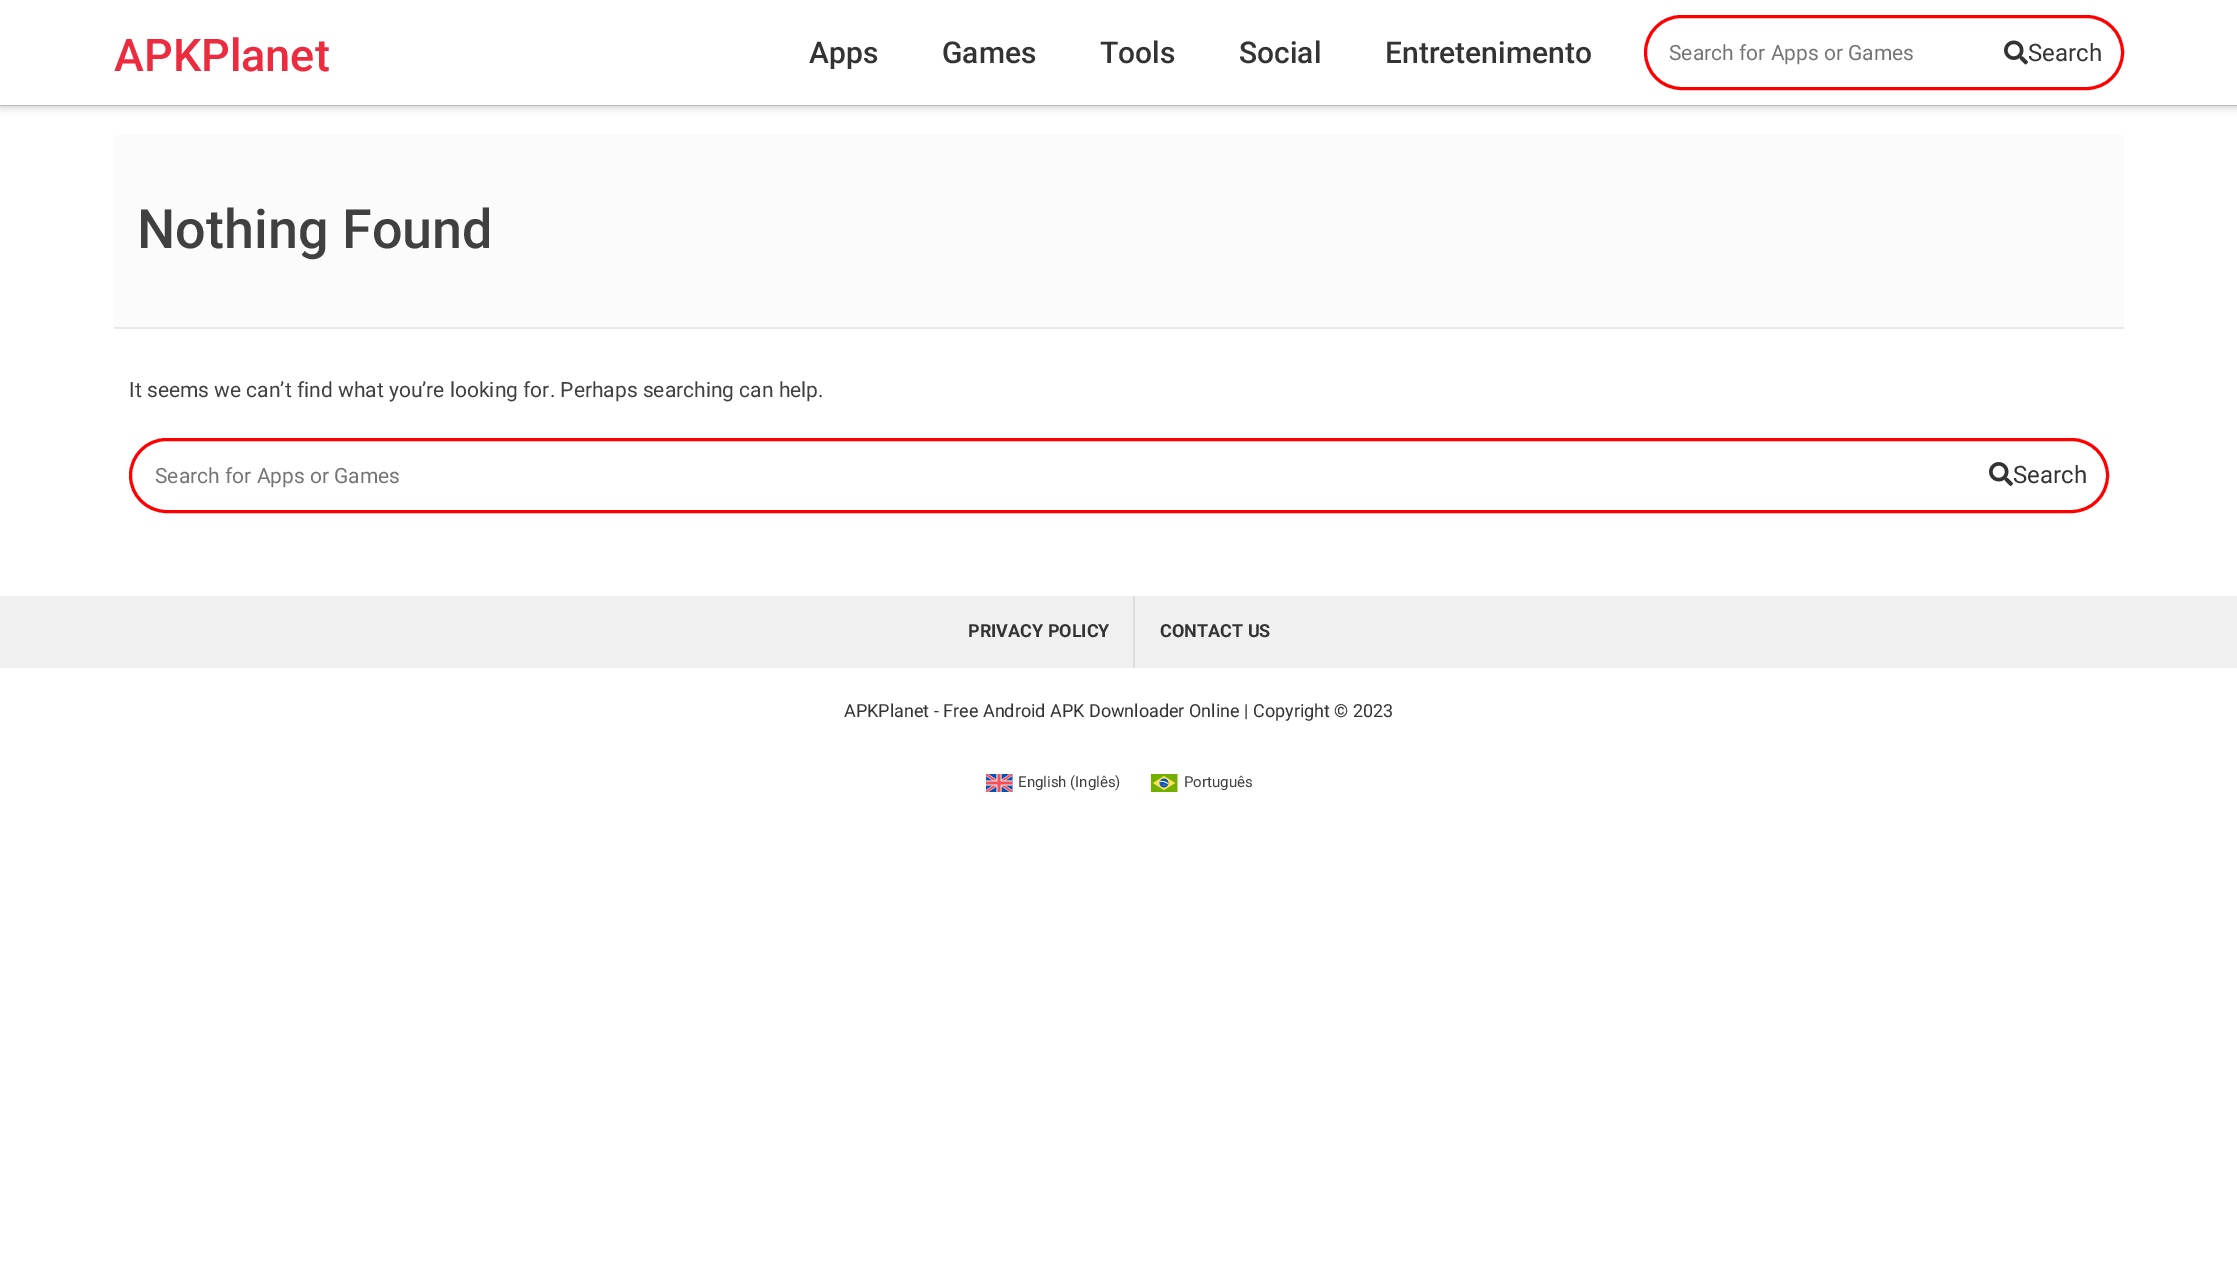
%!PS-Adobe-3.0
%%BoundingBox: 0 0 2237 1261
%%LanguageLevel: 3
%%Pages: 1
%%EndComments
%%BeginProlog
/setink { dup -16 bitshift 255 div exch dup -8 bitshift 255 and 255 div exch 255 and 255 div setrgbcolor } def
/usefont { [ exch dup neg 0 0 3 -1 roll 0 0 ] selectfont } def
/setalpha { dup .setfillconstantalpha .setstrokeconstantalpha } def
/rrect { 5 dict begin { /r /h /w /y /x } { exch def } forall
  x r add y moveto x w add y 2 copy h add r arct x w add y h add x 1 index r arct
  x y h add x y r arct x y 2 copy exch w add exch r arct closepath end } def
/softshadow { 12 dict begin { /a /b /q /h /w /y /x } { exch def } forall gsave /was 0 def
  9 -2 -9 { dup b mul 4 div /e exch def 1 sub .425 mul 2.718 exch exp 1 add a .99 .min exch div /now exch def
    1 1 now sub 1 was sub div sub setalpha /was now def
    w h .min e 2 mul add 0 gt { x e sub y e sub w e 2 mul add h e 2 mul add
      q e add b .6 mul add w h .min 2 div e add .min 0 .max rrect fill } if } for grestore end } def
/drawimage { 5 dict begin { /h /w /y /x /name } { exch def } forall
  gsave x y translate w h scale
  w h 8 [w 0 0 h 0 0] name (r) file false 3 colorimage grestore end } def
%%EndProlog
%%BeginSetup
<< /PageSize [2237 1261] /PageUsesTransparency true >> setpagedevice
%%EndSetup
%%Page: 1 1
0 .pushpdf14devicefilter
0 1261 translate 1 -1 scale
4 setmiterlimit
16#FFFFFF setink
0 0 2237 1261 rectfill
16#DDDDDD setink
0 105 2237 1 rectfill
16#000000 setink
0 2 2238 105 0 4 0.22 softshadow
16#FFFFFF setink
0 0 2237 105 rectfill
/Roboto-Medium 45 usefont
16#EC2C3E setink
114 71 moveto (APKPlanet) show
/Roboto-Medium 30 usefont
16#333333 setink
[
    [(Apps) 809 63]
    [(Games) 942 63]
    [(Tools) 1100 63]
    [(Social) 1239 63]
    [(Entretenimento) 1385 63]
] { aload pop moveto show } forall
16#FF0000 setink
3 setlinewidth
1645.5 16.5 477 72 36 rrect stroke
/Roboto-Regular 21 usefont
16#757575 setink
1669 60 moveto (Search for Apps or Games) show
(img1.raw) 2004 40 24 25 drawimage
/Roboto-Regular 24 usefont
16#333333 setink
2028 61 moveto (Search) show
16#FBFBFB setink
114 135 2010 192 rectfill
16#E8E8E8 setink
114 327 2010 2 rectfill
/Roboto-Medium 54 usefont
16#404040 setink
137 248 moveto (Nothing Found) show
/Roboto-Regular 21 usefont
129 397 moveto (It seems we can’t find what you’re looking for. Perhaps searching can help.) show
16#FF0000 setink
130.5 439.5 1977 72 36 rrect stroke
16#757575 setink
155 483 moveto (Search for Apps or Games) show
(img2.raw) 1989 462 24 24 drawimage
/Roboto-Regular 24 usefont
16#333333 setink
2013 483 moveto (Search) show
16#F0F0F0 setink
0 596 2237 72 rectfill
16#DDDDDD setink
1133 596 2 72 rectfill
/Roboto-Bold 18 usefont
16#333333 setink
968 637 moveto (PRIVACY POLICY) show
1160 637 moveto (CONTACT US) show
/Roboto-Regular 18 usefont
844 717 moveto (APKPlanet - Free Android APK Downloader Online | Copyright © 2023) show
(img3.raw) 986 774 27 18 drawimage
/Roboto-Regular 15 usefont
16#404040 setink
1018 787 moveto (English \(Inglês\)) show
(img4.raw) 1151 774 27 18 drawimage
1184 787 moveto (Português) show
.poppdf14devicefilter showpage
%%EOF
